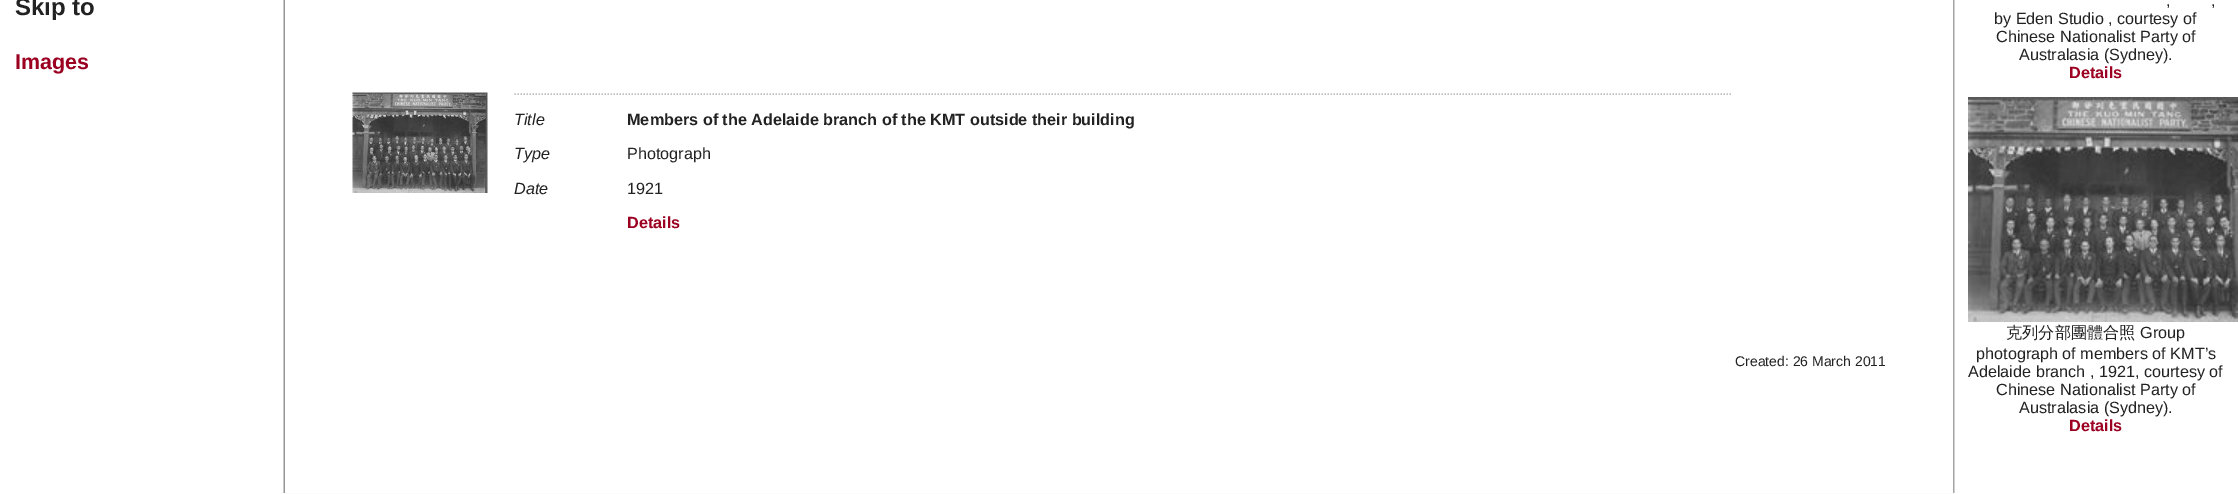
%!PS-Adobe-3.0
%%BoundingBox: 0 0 2238 494
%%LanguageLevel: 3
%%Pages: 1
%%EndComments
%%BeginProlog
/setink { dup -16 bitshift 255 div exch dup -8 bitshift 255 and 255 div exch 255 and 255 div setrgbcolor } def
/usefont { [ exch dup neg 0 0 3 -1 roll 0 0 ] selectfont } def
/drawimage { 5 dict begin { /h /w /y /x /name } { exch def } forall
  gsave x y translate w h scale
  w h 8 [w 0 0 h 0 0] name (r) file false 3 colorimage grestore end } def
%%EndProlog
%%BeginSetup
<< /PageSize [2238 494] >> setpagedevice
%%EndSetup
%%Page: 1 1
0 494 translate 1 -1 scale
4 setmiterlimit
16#FFFFFF setink
0 0 2238 494 rectfill
(img1.raw) 283 0 2 493 drawimage
(img2.raw) 1953 0 2 493 drawimage
/LiberationSans-Bold 24 usefont
16#222222 setink
15 15 moveto (Skip to) show
/LiberationSans-Bold 21.5 usefont
16#9C0021 setink
15 69 moveto (Images) show
(img3.raw) 352 92 136 101 drawimage
16#C0C0C0 setink
1.5 setlinewidth
[1.5 1.5] 0 setdash
514.5 94 moveto 1732.5 94 lineto stroke
/LiberationSans-Italic 16.2 usefont
16#222222 setink
514 125 moveto (Title) show
/LiberationSans-Bold 16.2 usefont
627 125 moveto (Members of the Adelaide branch of the KMT outside their building) show
/LiberationSans-Italic 16.2 usefont
514 159 moveto (Type) show
/LiberationSans-Regular 16.2 usefont
627 159 moveto (Photograph) show
/LiberationSans-Italic 16.2 usefont
514 194 moveto (Date) show
/LiberationSans-Regular 16.2 usefont
627 194 moveto (1921) show
/LiberationSans-Bold 16.2 usefont
16#9C0021 setink
627 228 moveto (Details) show
/LiberationSans-Regular 14 usefont
16#222222 setink
1735 366 moveto (Created: 26 March 2011) show
/LiberationSans-Regular 16.2 usefont
[
    [(,) 2166 6]
    [(,) 2211 6]
    [(by Eden Studio , courtesy of) 1994 24]
    [(Chinese Nationalist Party of) 1996 42]
    [(Australasia \(Sydney\).) 2019 60]
] { aload pop moveto show } forall
/LiberationSans-Bold 16.2 usefont
16#9C0021 setink
2069 78 moveto (Details) show
(img4.raw) 1968 97 270 225 drawimage
/WenQuanYiZenHei-Medium 16.2 usefont
16#222222 setink
2006 338 moveto (克列分部團體合照) show
/LiberationSans-Regular 16.2 usefont
[
    [(Group) 2140 338]
    [(photograph of members of KMT’s) 1976 359]
    [(Adelaide branch , 1921, courtesy of) 1968 377]
    [(Chinese Nationalist Party of) 1996 395]
    [(Australasia \(Sydney\).) 2019 413]
] { aload pop moveto show } forall
/LiberationSans-Bold 16.2 usefont
16#9C0021 setink
2069 431 moveto (Details) show
16#FCFCFC setink
283 493 1672 1 rectfill
showpage
%%EOF
